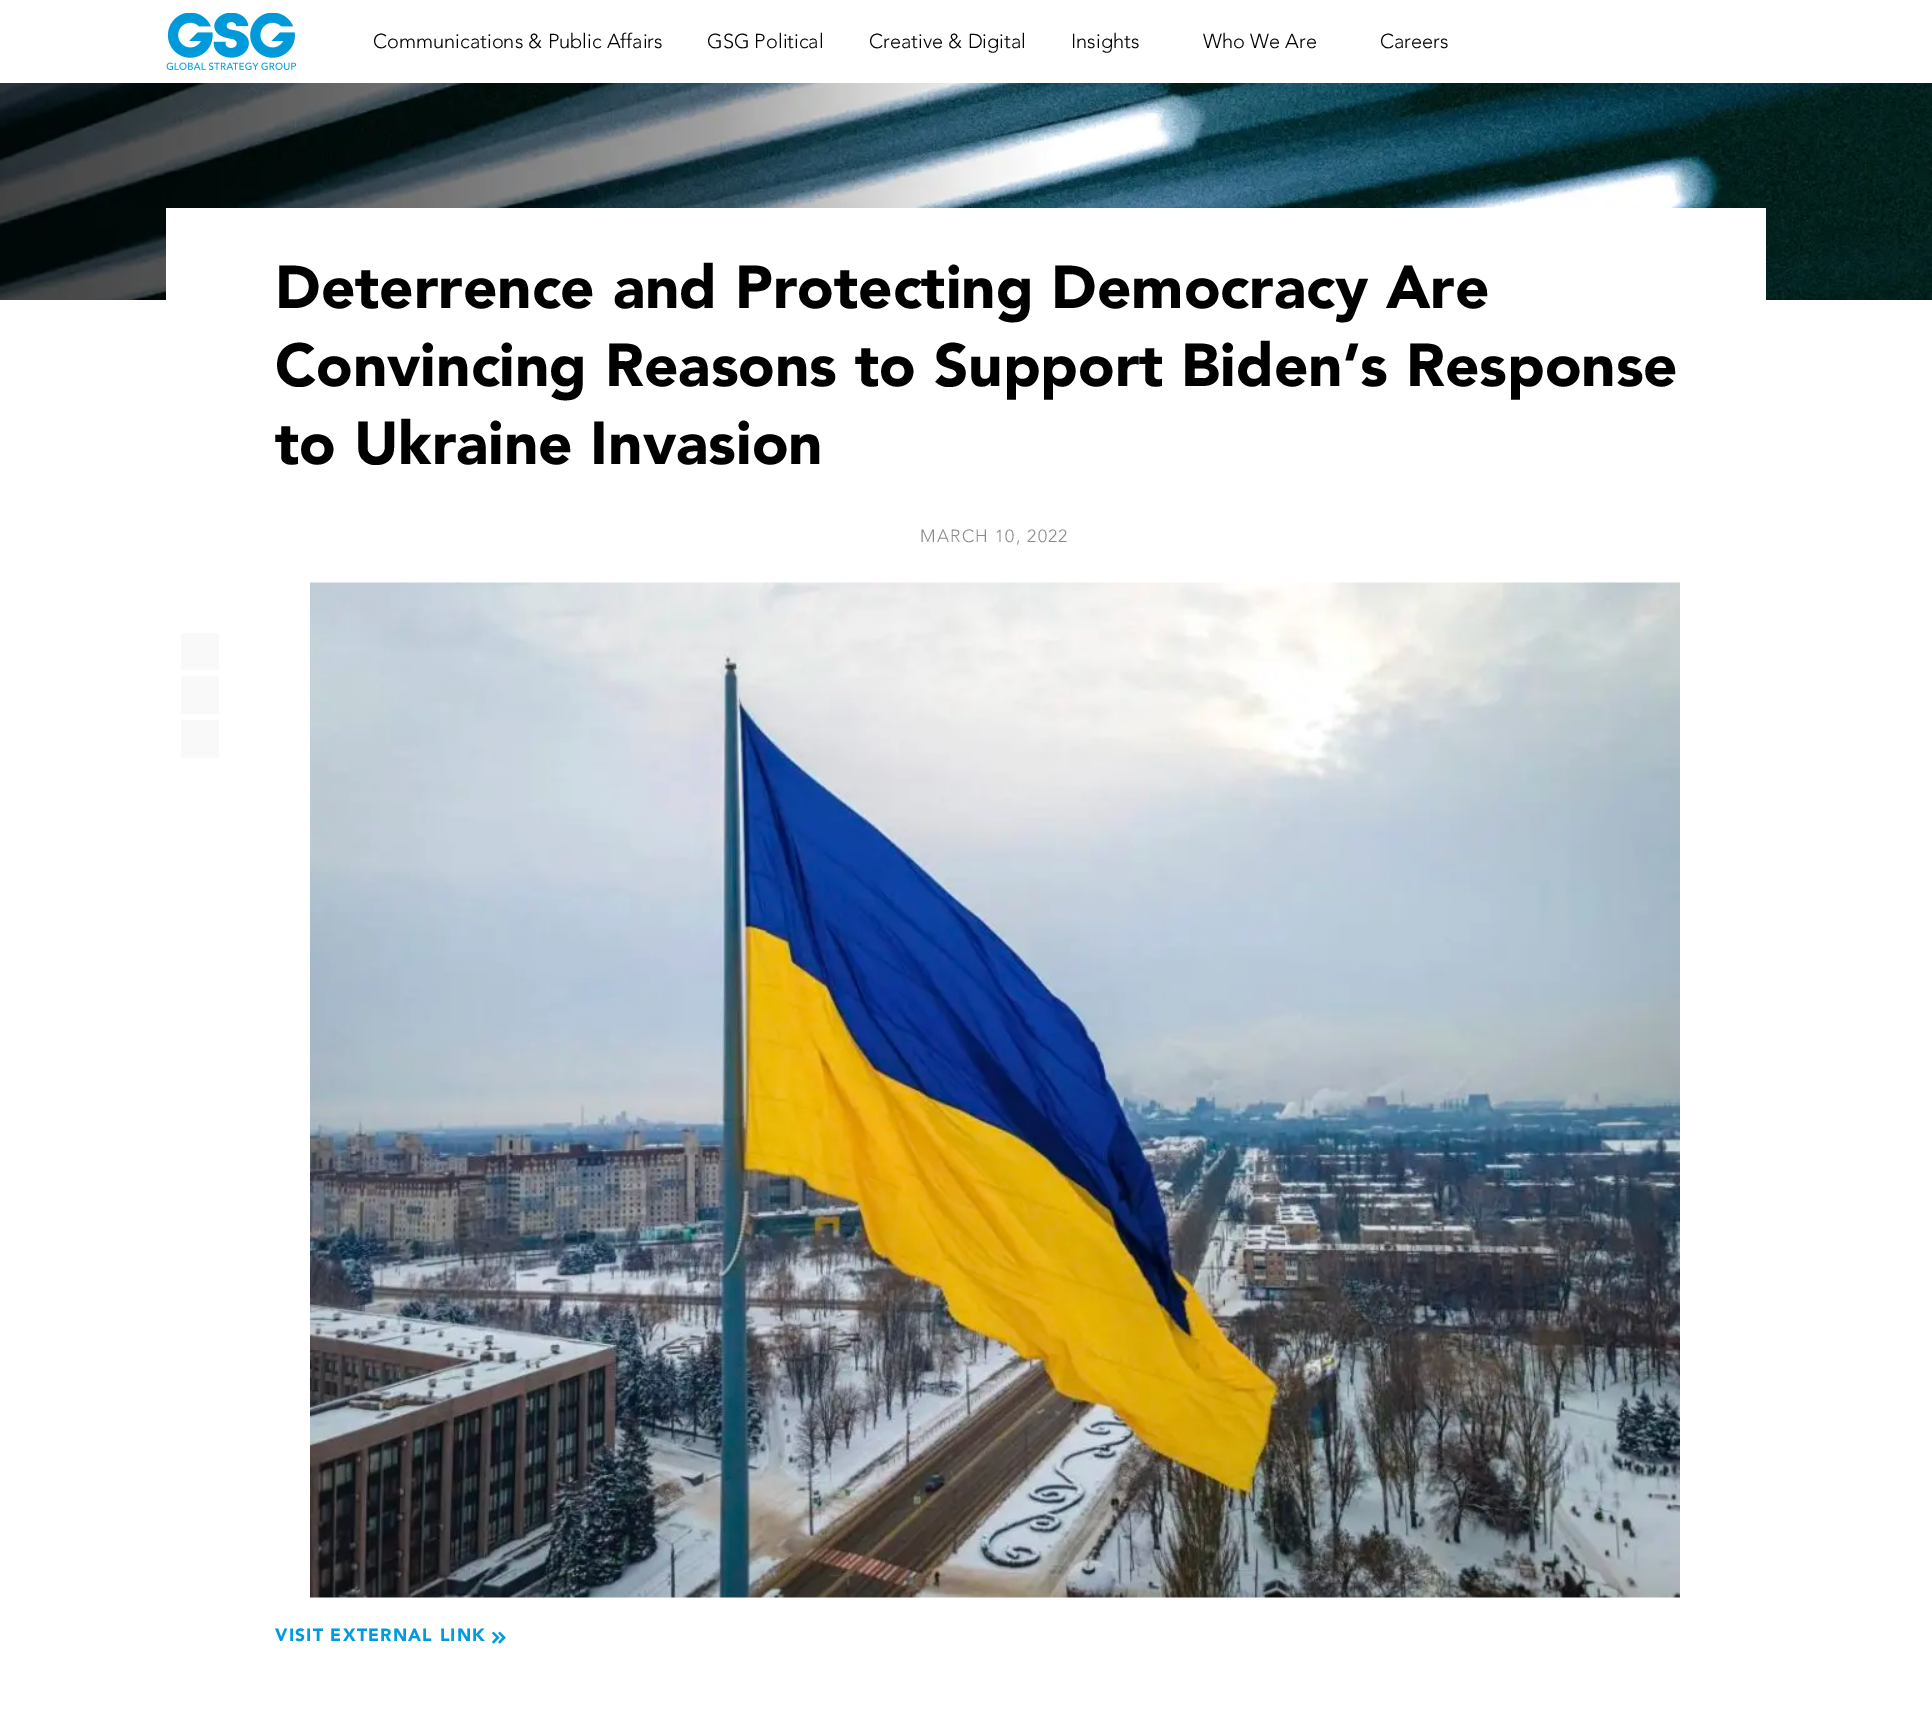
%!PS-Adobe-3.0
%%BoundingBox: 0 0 1932 1717
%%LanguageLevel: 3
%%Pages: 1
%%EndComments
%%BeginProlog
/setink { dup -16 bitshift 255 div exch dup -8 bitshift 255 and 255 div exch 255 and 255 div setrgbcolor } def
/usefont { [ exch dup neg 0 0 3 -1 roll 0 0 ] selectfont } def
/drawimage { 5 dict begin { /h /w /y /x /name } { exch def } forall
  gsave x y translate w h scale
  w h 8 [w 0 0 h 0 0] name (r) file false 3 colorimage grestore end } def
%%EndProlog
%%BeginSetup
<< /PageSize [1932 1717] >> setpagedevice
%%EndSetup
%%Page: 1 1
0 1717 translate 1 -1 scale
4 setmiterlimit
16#FFFFFF setink
0 0 1932 1717 rectfill
(img1.raw) 166 13 130 57 drawimage
/Avenir-Light 20 usefont
16#000000 setink
[
    [(Communications & Public Affairs) 373 48]
    [(GSG Political) 707 48]
    [(Creative & Digital) 869 48]
    [(Insights) 1071 48]
    [(Who We Are) 1203 48]
    [(Careers) 1380 48]
] { aload pop moveto show } forall
(img2.raw) 0 83 1932 217 drawimage
16#FFFFFF setink
166 208 1600 92 rectfill
/Avenir-Black 60 usefont
16#000000 setink
[
    [(Deterrence and Protecting Democracy Are) 275 308]
    [(Convincing Reasons to Support Biden’s Response) 275 386]
    [(to Ukraine Invasion) 275 464]
] { aload pop moveto show } forall
/Avenir-Light 17.5 usefont
16#888B8D setink
920 542 moveto 1.25 0 (MARCH 10, 2022) ashow
[
    [181 633 38 37 16#F9F9F9]
    [181 676 38 38 16#F9F9F9]
    [181 720 38 38 16#F9F9F9]
] { aload pop setink rectfill } forall
(img3.raw) 310 582 1370 1016 drawimage
/Avenir-Black 17.5 usefont
16#009BDD setink
275 1641 moveto 1.25 0 (VISIT EXTERNAL LINK) ashow
(img4.raw) 492 1631 14 13 drawimage
showpage
%%EOF
